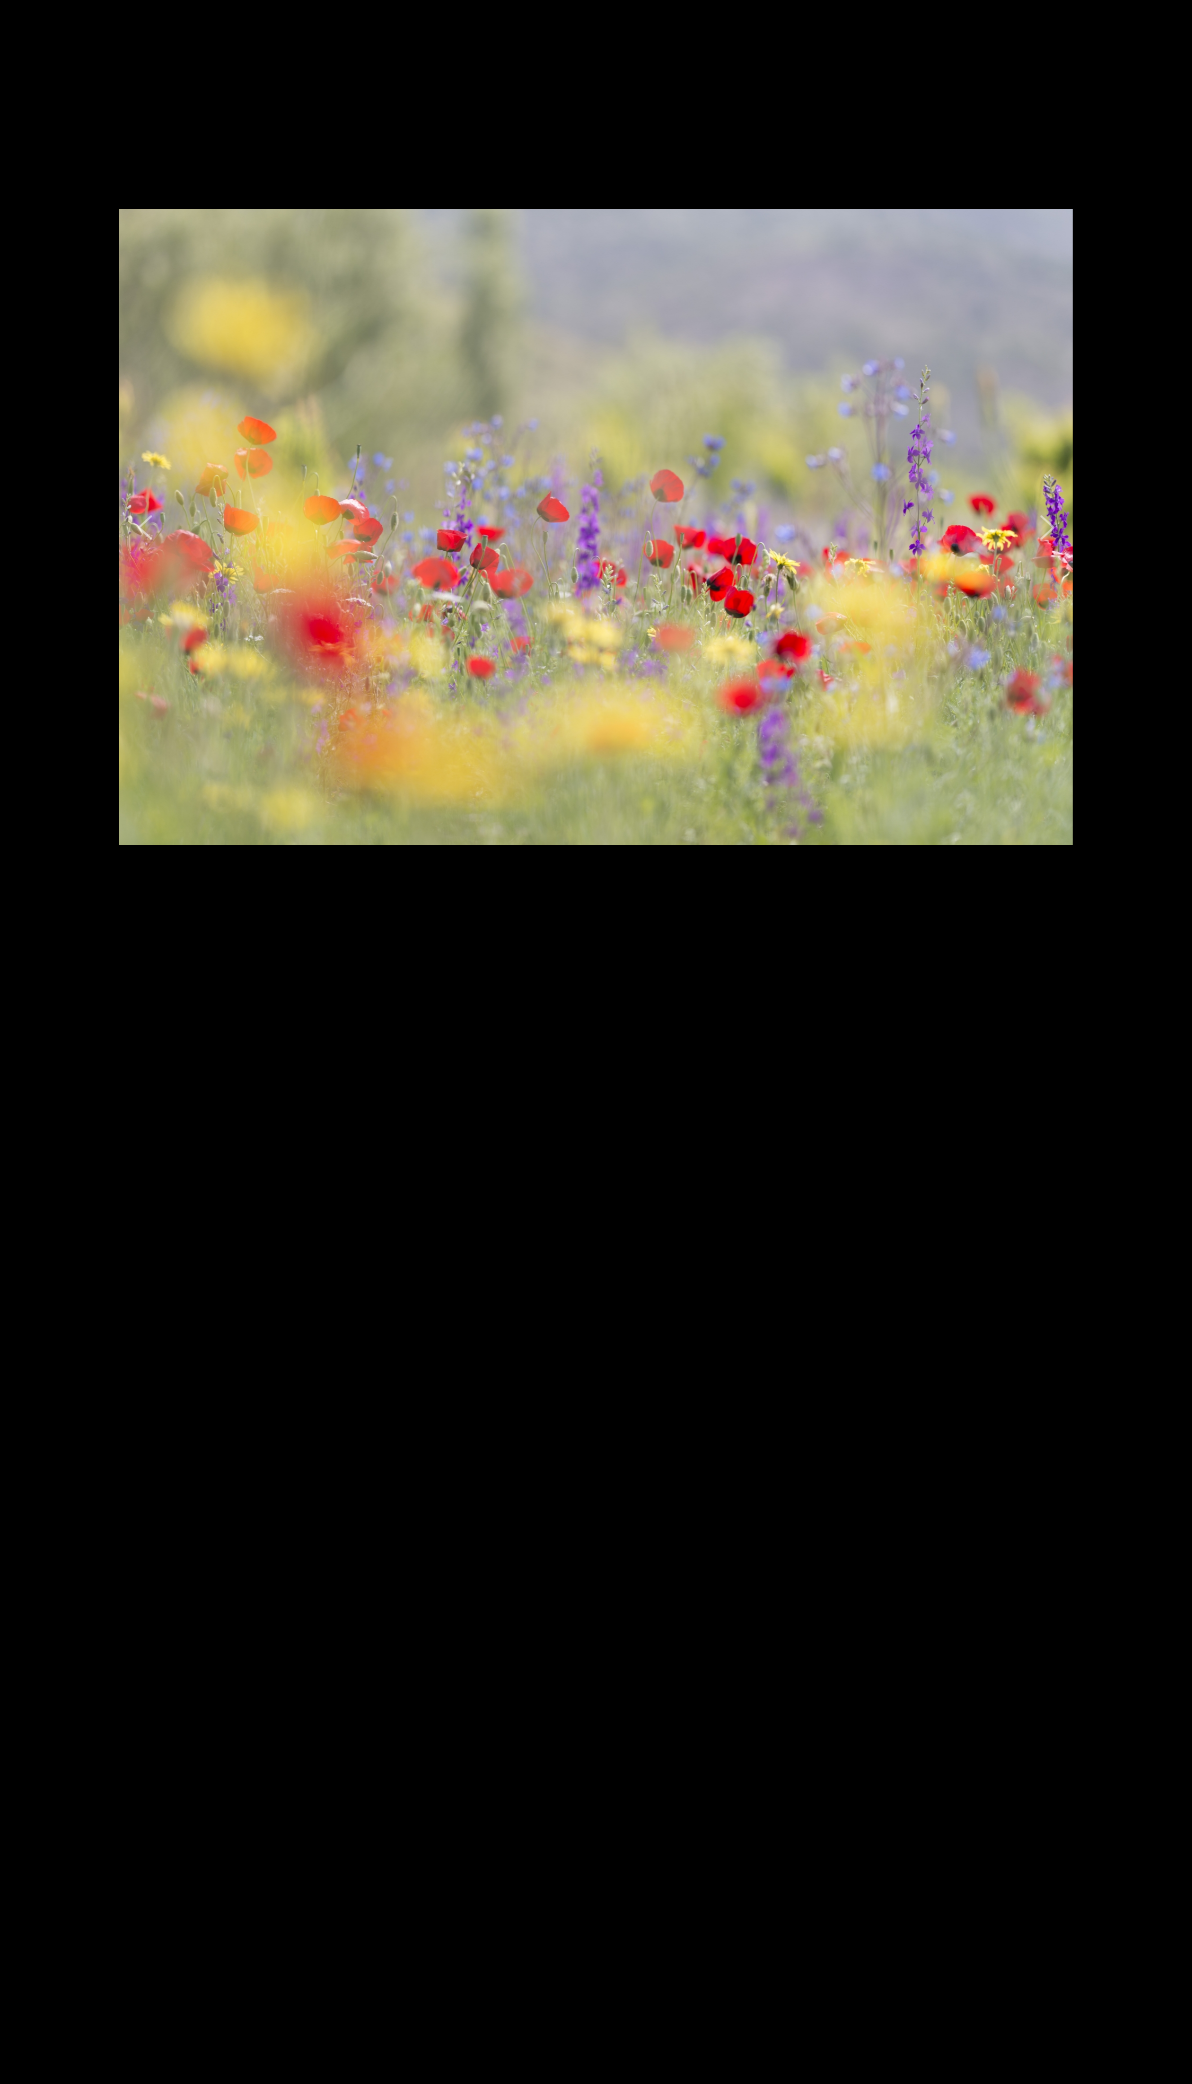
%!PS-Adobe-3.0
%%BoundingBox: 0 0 1192 2084
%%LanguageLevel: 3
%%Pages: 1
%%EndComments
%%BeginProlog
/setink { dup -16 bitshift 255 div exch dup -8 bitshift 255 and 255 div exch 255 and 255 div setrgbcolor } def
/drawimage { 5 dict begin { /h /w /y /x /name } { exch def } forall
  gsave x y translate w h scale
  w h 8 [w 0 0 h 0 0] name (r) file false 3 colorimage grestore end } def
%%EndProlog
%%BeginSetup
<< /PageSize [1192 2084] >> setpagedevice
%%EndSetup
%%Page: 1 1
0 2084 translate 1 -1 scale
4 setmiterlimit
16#000000 setink
0 0 1192 2084 rectfill
(img1.raw) 119 209 954 636 drawimage
(img2.raw) 138 515 14 25 drawimage
(img3.raw) 1040 515 15 25 drawimage
showpage
%%EOF
